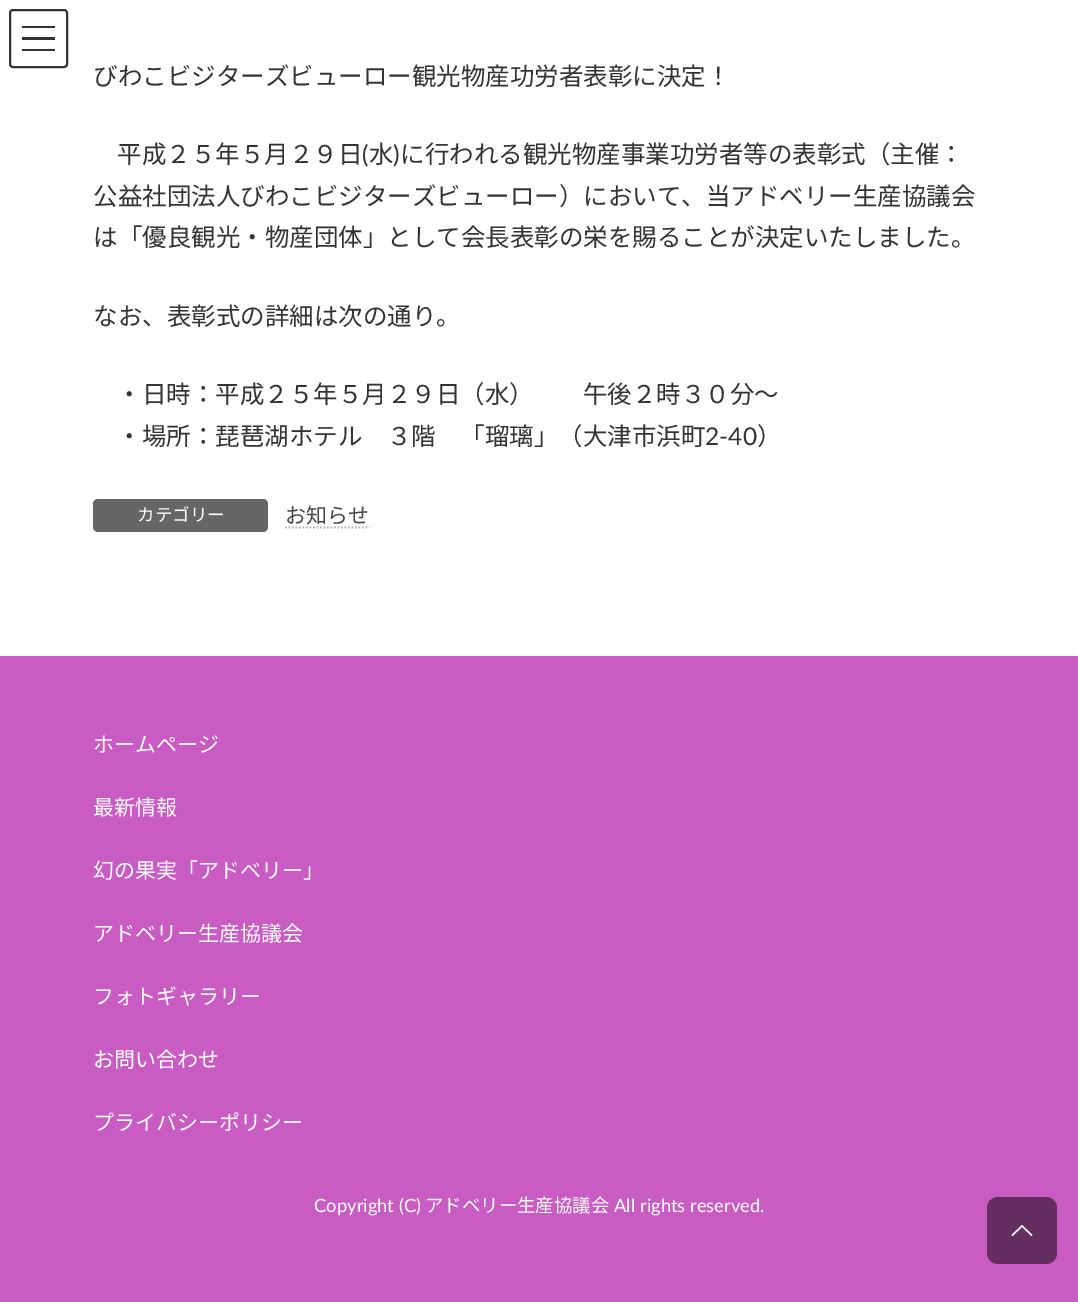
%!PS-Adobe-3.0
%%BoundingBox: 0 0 1078 1302
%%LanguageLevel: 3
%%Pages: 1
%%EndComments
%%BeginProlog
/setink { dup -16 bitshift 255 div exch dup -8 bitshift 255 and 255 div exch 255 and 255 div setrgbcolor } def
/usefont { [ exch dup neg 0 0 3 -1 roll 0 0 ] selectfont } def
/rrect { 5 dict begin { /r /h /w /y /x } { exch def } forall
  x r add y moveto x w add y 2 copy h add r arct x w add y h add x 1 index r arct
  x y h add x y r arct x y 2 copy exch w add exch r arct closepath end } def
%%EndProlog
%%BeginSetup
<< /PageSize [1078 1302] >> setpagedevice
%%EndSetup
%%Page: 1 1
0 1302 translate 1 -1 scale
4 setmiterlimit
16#FFFFFF setink
0 0 1078 1302 rectfill
[
    [22 26 33 2 16#333333]
    [22 37 33 3 16#333333]
    [22 49 33 2 16#333333]
] { aload pop setink rectfill } forall
2 setlinewidth
10 10 57 57 3 rrect stroke
/NotoSansJP-Regular 24.5 usefont
93 85 moveto (びわこビジターズビューロー観光物産功労者表彰に決定！) show
117 163 moveto (平成２５年５月２９日) show
/Lato-Regular 24.5 usefont
362 163 moveto (\() show
/NotoSansJP-Regular 24.5 usefont
369 163 moveto (水) show
/Lato-Regular 24.5 usefont
393 163 moveto (\)) show
/NotoSansJP-Regular 24.5 usefont
[
    [(に行われる観光物産事業功労者等の表彰式（主催：) 400 163]
    [(公益社団法人びわこビジターズビューロー）において、当アドベリー生産協議会) 93 205]
    [(は「優良観光・物産団体」として会長表彰の栄を賜ることが決定いたしました。) 93 246]
    [(なお、表彰式の詳細は次の通り。) 93 325]
    [(・日時：平成２５年５月２９日（水）　　午後２時３０分～) 117 403]
    [(・場所：琵琶湖ホテル　３階　「瑠璃」（大津市浜町) 117 445]
] { aload pop moveto show } forall
/Lato-Regular 24.5 usefont
705 445 moveto (2-40) show
/NotoSansJP-Regular 24.5 usefont
757 445 moveto (）) show
16#666666 setink
93 499 175 33 5 rrect fill
/NotoSansJP-Regular 17.5 usefont
16#FFFFFF setink
137 521 moveto (カテゴリー) show
/NotoSansJP-Regular 21 usefont
16#464646 setink
285 523 moveto (お知らせ) show
16#B3B3B3 setink
1.8 setlinewidth
[1.75 1.75] 0 setdash
285 527.5 moveto 369.5 527.5 lineto stroke
16#C95CC2 setink
0 656 1078 646 rectfill
16#FFFFFF setink
[
    [(ホームページ) 93 752]
    [(最新情報) 93 815]
    [(幻の果実「アドベリー」) 93 878]
    [(アドベリー生産協議会) 93 941]
    [(フォトギャラリー) 93 1004]
    [(お問い合わせ) 93 1067]
    [(プライバシーポリシー) 93 1130]
] { aload pop moveto show } forall
/Lato-Regular 18.4 usefont
314 1212 moveto (Copyright \(C\)) show
/NotoSansJP-Regular 18.4 usefont
425 1212 moveto (アドベリー生産協議会) show
/Lato-Regular 18.4 usefont
614 1212 moveto (All rights reserved.) show
16#652E61 setink
987 1197 70 67 11 rrect fill
16#FFFFFF setink
1032.5 1235 moveto 1031.5 1236 lineto 1022 1227 lineto 1012.5 1236 lineto 1011.5 1235 lineto 1022 1225 lineto closepath fill
showpage
%%EOF
